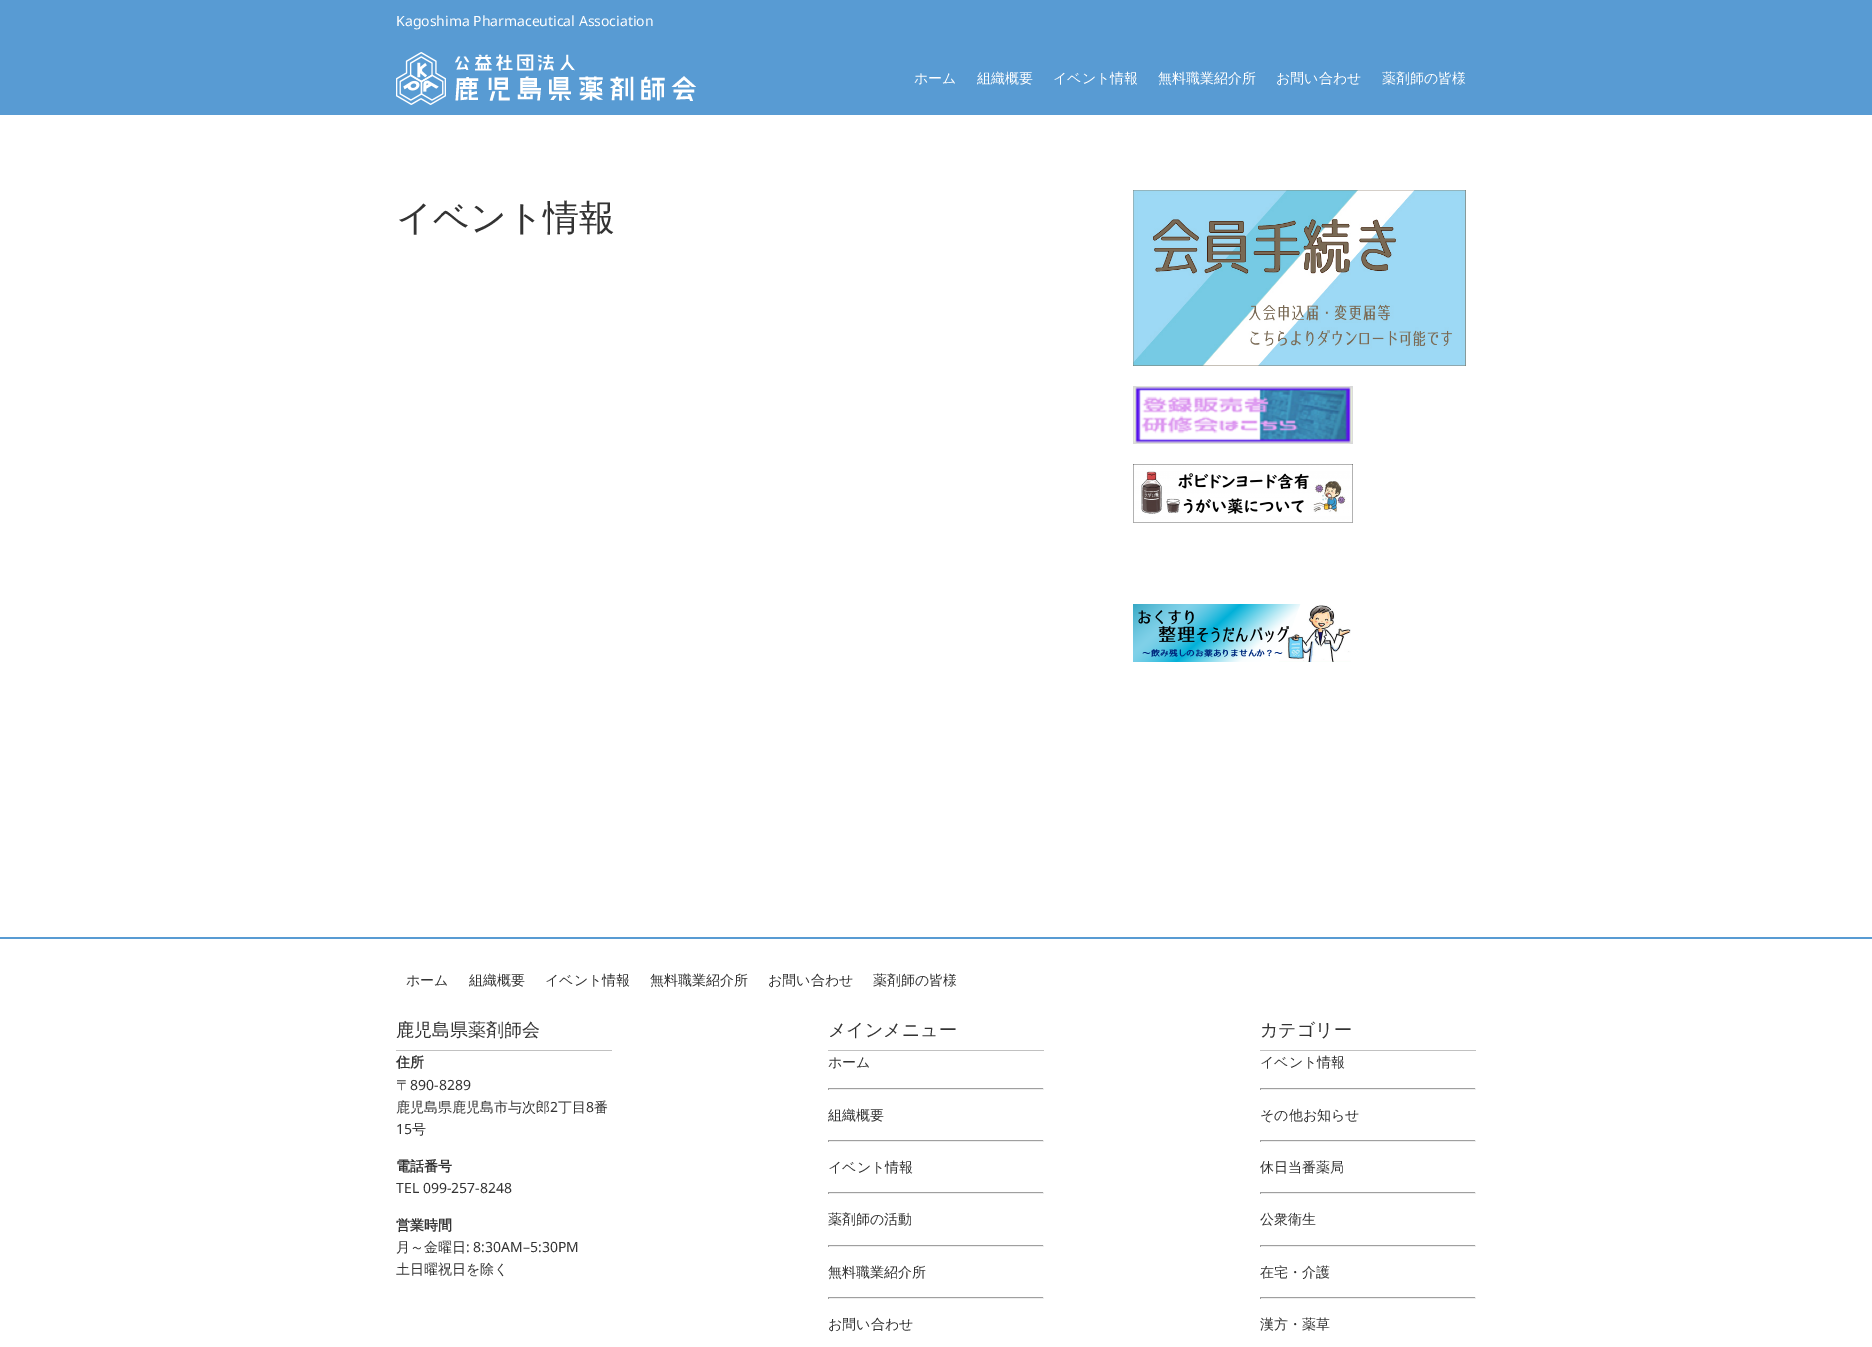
%!PS-Adobe-3.0
%%BoundingBox: 0 0 1872 1347
%%LanguageLevel: 3
%%Pages: 1
%%EndComments
%%BeginProlog
/setink { dup -16 bitshift 255 div exch dup -8 bitshift 255 and 255 div exch 255 and 255 div setrgbcolor } def
/usefont { [ exch dup neg 0 0 3 -1 roll 0 0 ] selectfont } def
/drawimage { 5 dict begin { /h /w /y /x /name } { exch def } forall
  gsave x y translate w h scale
  w h 8 [w 0 0 h 0 0] name (r) file false 3 colorimage grestore end } def
%%EndProlog
%%BeginSetup
<< /PageSize [1872 1347] >> setpagedevice
%%EndSetup
%%Page: 1 1
0 1347 translate 1 -1 scale
4 setmiterlimit
16#FFFFFF setink
0 0 1872 1347 rectfill
16#589BD3 setink
0 0 1872 115 rectfill
/NotoSans-Regular 14 usefont
16#FFFFFF setink
396 26 moveto (Kagoshima Pharmaceutical Association) show
(img1.raw) 396 52 300 53 drawimage
/WenQuanYiZenHei-Medium 14 usefont
[
    [(ホーム) 914 83]
    [(組織概要) 977 83]
    [(イベント情報) 1053 83]
    [(無料職業紹介所) 1158 83]
    [(お問い合わせ) 1276 83]
    [(薬剤師の皆様) 1382 83]
] { aload pop moveto show } forall
/WenQuanYiZenHei-Medium 36 usefont
16#333333 setink
396 230 moveto (イベント情報) show
(img2.raw) 1133 190 333 176 drawimage
(img3.raw) 1133 386 220 58 drawimage
(img4.raw) 1133 464 220 59 drawimage
(img5.raw) 1133 604 218 58 drawimage
16#589BD3 setink
0 937 1872 2 rectfill
/WenQuanYiZenHei-Medium 14 usefont
16#333333 setink
[
    [(ホーム) 406 985]
    [(組織概要) 469 985]
    [(イベント情報) 545 985]
    [(無料職業紹介所) 650 985]
    [(お問い合わせ) 768 985]
    [(薬剤師の皆様) 873 985]
] { aload pop moveto show } forall
16#C1C1C1 setink
396 1050 216 1 rectfill
/WenQuanYiZenHei-Medium 18 usefont
16#333333 setink
396 1036 moveto (鹿児島県薬剤師会) show
/WenQuanYiZenHei-Bold 14 usefont
396 1067 moveto (住所) show
/WenQuanYiZenHei-Medium 14 usefont
396 1090 moveto (〒) show
/NotoSans-Regular 14 usefont
410 1090 moveto (890-8289) show
/WenQuanYiZenHei-Medium 14 usefont
396 1112 moveto (鹿児島県鹿児島市与次郎) show
/NotoSans-Regular 14 usefont
550 1112 moveto (2) show
/WenQuanYiZenHei-Medium 14 usefont
558 1112 moveto (丁目) show
/NotoSans-Regular 14 usefont
586 1112 moveto (8) show
/WenQuanYiZenHei-Medium 14 usefont
594 1112 moveto (番) show
/NotoSans-Regular 14 usefont
396 1134 moveto (15) show
/WenQuanYiZenHei-Medium 14 usefont
412 1134 moveto (号) show
/WenQuanYiZenHei-Bold 14 usefont
396 1171 moveto (電話番号) show
/NotoSans-Regular 14 usefont
396 1193 moveto (TEL 099-257-8248) show
/WenQuanYiZenHei-Bold 14 usefont
396 1230 moveto (営業時間) show
/WenQuanYiZenHei-Medium 14 usefont
396 1252 moveto (月～金曜日) show
/NotoSans-Regular 14 usefont
466 1252 moveto (: 8:30AM–5:30PM) show
/WenQuanYiZenHei-Medium 14 usefont
396 1274 moveto (土日曜祝日を除く) show
16#C1C1C1 setink
828 1050 216 1 rectfill
/WenQuanYiZenHei-Medium 18 usefont
16#333333 setink
828 1036 moveto (メインメニュー) show
/WenQuanYiZenHei-Medium 14 usefont
828 1067 moveto (ホーム) show
[
    [828 1088 216 1 16#9F9F9F]
    [1043 1088 1 2 16#EEEEEE]
    [828 1089 216 1 16#EEEEEE]
    [828 1088 1 2 16#9F9F9F]
] { aload pop setink rectfill } forall
16#333333 setink
828 1120 moveto (組織概要) show
[
    [828 1140 216 1 16#9F9F9F]
    [1043 1140 1 2 16#EEEEEE]
    [828 1141 216 1 16#EEEEEE]
    [828 1140 1 2 16#9F9F9F]
] { aload pop setink rectfill } forall
16#333333 setink
828 1172 moveto (イベント情報) show
[
    [828 1192 216 1 16#9F9F9F]
    [1043 1192 1 2 16#EEEEEE]
    [828 1193 216 1 16#EEEEEE]
    [828 1192 1 2 16#9F9F9F]
] { aload pop setink rectfill } forall
16#333333 setink
828 1224 moveto (薬剤師の活動) show
[
    [828 1245 216 1 16#9F9F9F]
    [1043 1245 1 2 16#EEEEEE]
    [828 1246 216 1 16#EEEEEE]
    [828 1245 1 2 16#9F9F9F]
] { aload pop setink rectfill } forall
16#333333 setink
828 1277 moveto (無料職業紹介所) show
[
    [828 1297 216 1 16#9F9F9F]
    [1043 1297 1 2 16#EEEEEE]
    [828 1298 216 1 16#EEEEEE]
    [828 1297 1 2 16#9F9F9F]
] { aload pop setink rectfill } forall
16#333333 setink
828 1329 moveto (お問い合わせ) show
16#C1C1C1 setink
1260 1050 216 1 rectfill
/WenQuanYiZenHei-Medium 18 usefont
16#333333 setink
1260 1036 moveto (カテゴリー) show
/WenQuanYiZenHei-Medium 14 usefont
1260 1067 moveto (イベント情報) show
[
    [1260 1088 216 1 16#9F9F9F]
    [1475 1088 1 2 16#EEEEEE]
    [1260 1089 216 1 16#EEEEEE]
    [1260 1088 1 2 16#9F9F9F]
] { aload pop setink rectfill } forall
16#333333 setink
1260 1120 moveto (その他お知らせ) show
[
    [1260 1140 216 1 16#9F9F9F]
    [1475 1140 1 2 16#EEEEEE]
    [1260 1141 216 1 16#EEEEEE]
    [1260 1140 1 2 16#9F9F9F]
] { aload pop setink rectfill } forall
16#333333 setink
1260 1172 moveto (休日当番薬局) show
[
    [1260 1192 216 1 16#9F9F9F]
    [1475 1192 1 2 16#EEEEEE]
    [1260 1193 216 1 16#EEEEEE]
    [1260 1192 1 2 16#9F9F9F]
] { aload pop setink rectfill } forall
16#333333 setink
1260 1224 moveto (公衆衛生) show
[
    [1260 1245 216 1 16#9F9F9F]
    [1475 1245 1 2 16#EEEEEE]
    [1260 1246 216 1 16#EEEEEE]
    [1260 1245 1 2 16#9F9F9F]
] { aload pop setink rectfill } forall
16#333333 setink
1260 1277 moveto (在宅・介護) show
[
    [1260 1297 216 1 16#9F9F9F]
    [1475 1297 1 2 16#EEEEEE]
    [1260 1298 216 1 16#EEEEEE]
    [1260 1297 1 2 16#9F9F9F]
] { aload pop setink rectfill } forall
16#333333 setink
1260 1329 moveto (漢方・薬草) show
showpage
%%EOF
